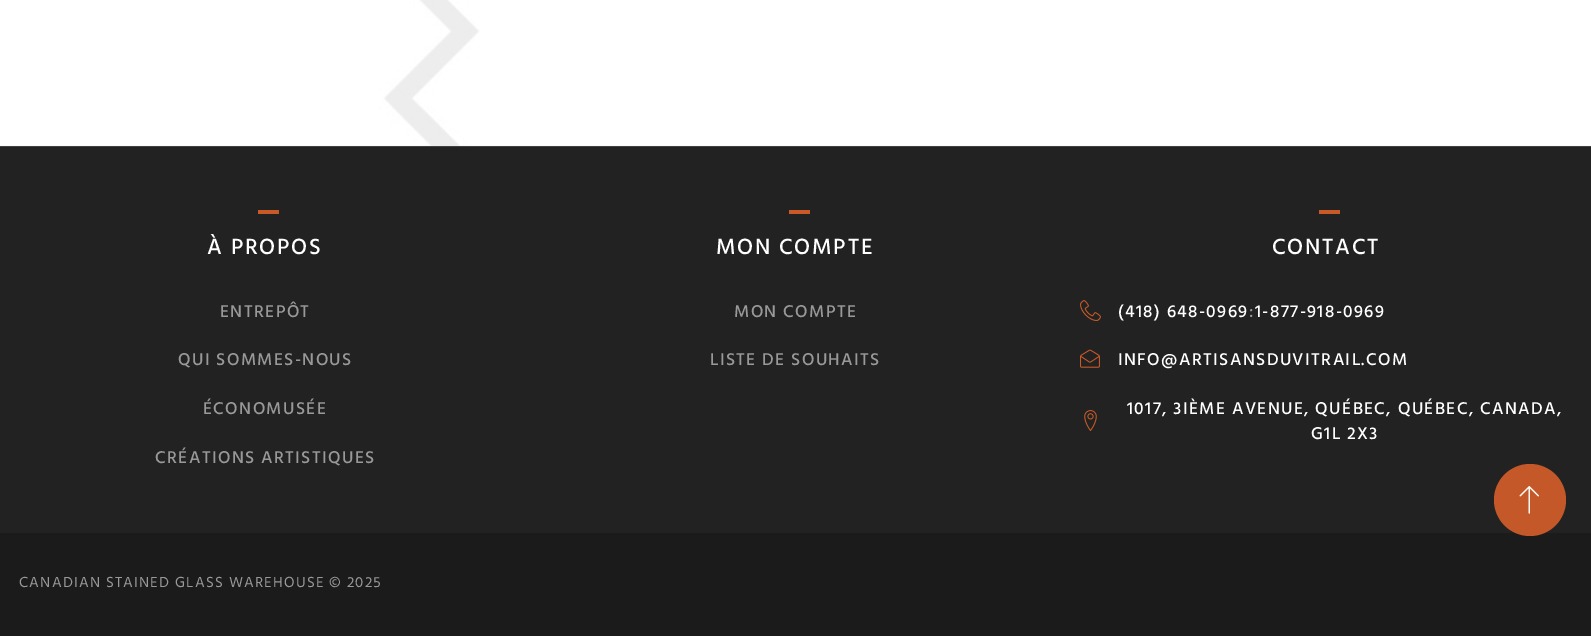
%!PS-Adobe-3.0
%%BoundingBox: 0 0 1591 636
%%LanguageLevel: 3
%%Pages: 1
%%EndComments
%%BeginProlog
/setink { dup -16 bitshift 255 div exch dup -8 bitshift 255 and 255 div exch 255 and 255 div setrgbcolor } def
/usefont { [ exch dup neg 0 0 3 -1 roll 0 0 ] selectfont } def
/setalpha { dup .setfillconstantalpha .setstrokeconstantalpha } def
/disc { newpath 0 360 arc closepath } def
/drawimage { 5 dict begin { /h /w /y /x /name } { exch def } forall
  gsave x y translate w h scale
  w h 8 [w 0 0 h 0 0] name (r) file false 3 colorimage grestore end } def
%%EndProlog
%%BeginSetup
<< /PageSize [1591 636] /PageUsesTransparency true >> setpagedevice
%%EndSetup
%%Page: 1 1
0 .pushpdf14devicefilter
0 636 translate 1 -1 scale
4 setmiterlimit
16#FFFFFF setink
0 0 1591 636 rectfill
(img1.raw) 0 0 1591 146 drawimage
[
    [0 533 1591 103 16#1B1B1B]
    [0 147 1591 386 16#222222]
    [0 146 1591 1 16#414141]
    [258 210 21 4 16#C95A28]
] { aload pop setink rectfill } forall
/HindSiliguri-Medium 22.5 usefont
16#FFFFFF setink
207 254 moveto 1.75 0 (À PROPOS) ashow
/HindSiliguri-Medium 17.5 usefont
16#999999 setink
220 317 moveto 1.4 0 (ENTREPÔT) ashow
178 365 moveto 1.4 0 (QUI SOMMES-NOUS) ashow
203 414 moveto 1.4 0 (ÉCONOMUSÉE) ashow
155 463 moveto 1.4 0 (CRÉATIONS ARTISTIQUES) ashow
16#C95A28 setink
789 210 21 4 rectfill
/HindSiliguri-Medium 22.5 usefont
16#FFFFFF setink
716 254 moveto 1.75 0 (MON COMPTE) ashow
/HindSiliguri-Medium 17.5 usefont
16#999999 setink
734 317 moveto 1.4 0 (MON COMPTE) ashow
710 365 moveto 1.4 0 (LISTE DE SOUHAITS) ashow
16#C95A28 setink
1319 210 21 4 rectfill
/HindSiliguri-Medium 22.5 usefont
16#FFFFFF setink
1272 254 moveto 1.75 0 (CONTACT) ashow
(img2.raw) 1080 300 21 21 drawimage
/HindSiliguri-Medium 17.5 usefont
1118 317 moveto 1.4 0 (\(418\) 648-0969) ashow
16#999999 setink
1249 317 moveto 1.4 0 (:) ashow
16#FFFFFF setink
1255 317 moveto 1.4 0 (1-877-918-0969) ashow
(img3.raw) 1080 349 20 19 drawimage
1118 365 moveto 1.4 0 (INFO@ARTISANSDUVITRAIL.COM) ashow
(img4.raw) 1084 410 13 21 drawimage
1127 414 moveto 1.4 0 (1017, 3IÈME AVENUE, QUÉBEC, QUÉBEC, CANADA,) ashow
1311 439 moveto 1.4 0 (G1L 2X3) ashow
/HindSiliguri-Regular 15 usefont
16#999999 setink
19 587 moveto 1.25 0 (CANADIAN STAINED GLASS WAREHOUSE © 2025) ashow
0.97 setalpha
16#C95A28 setink
1530 500 36 disc fill
1 setalpha
(img5.raw) 1519 486 20 28 drawimage
.poppdf14devicefilter showpage
%%EOF
